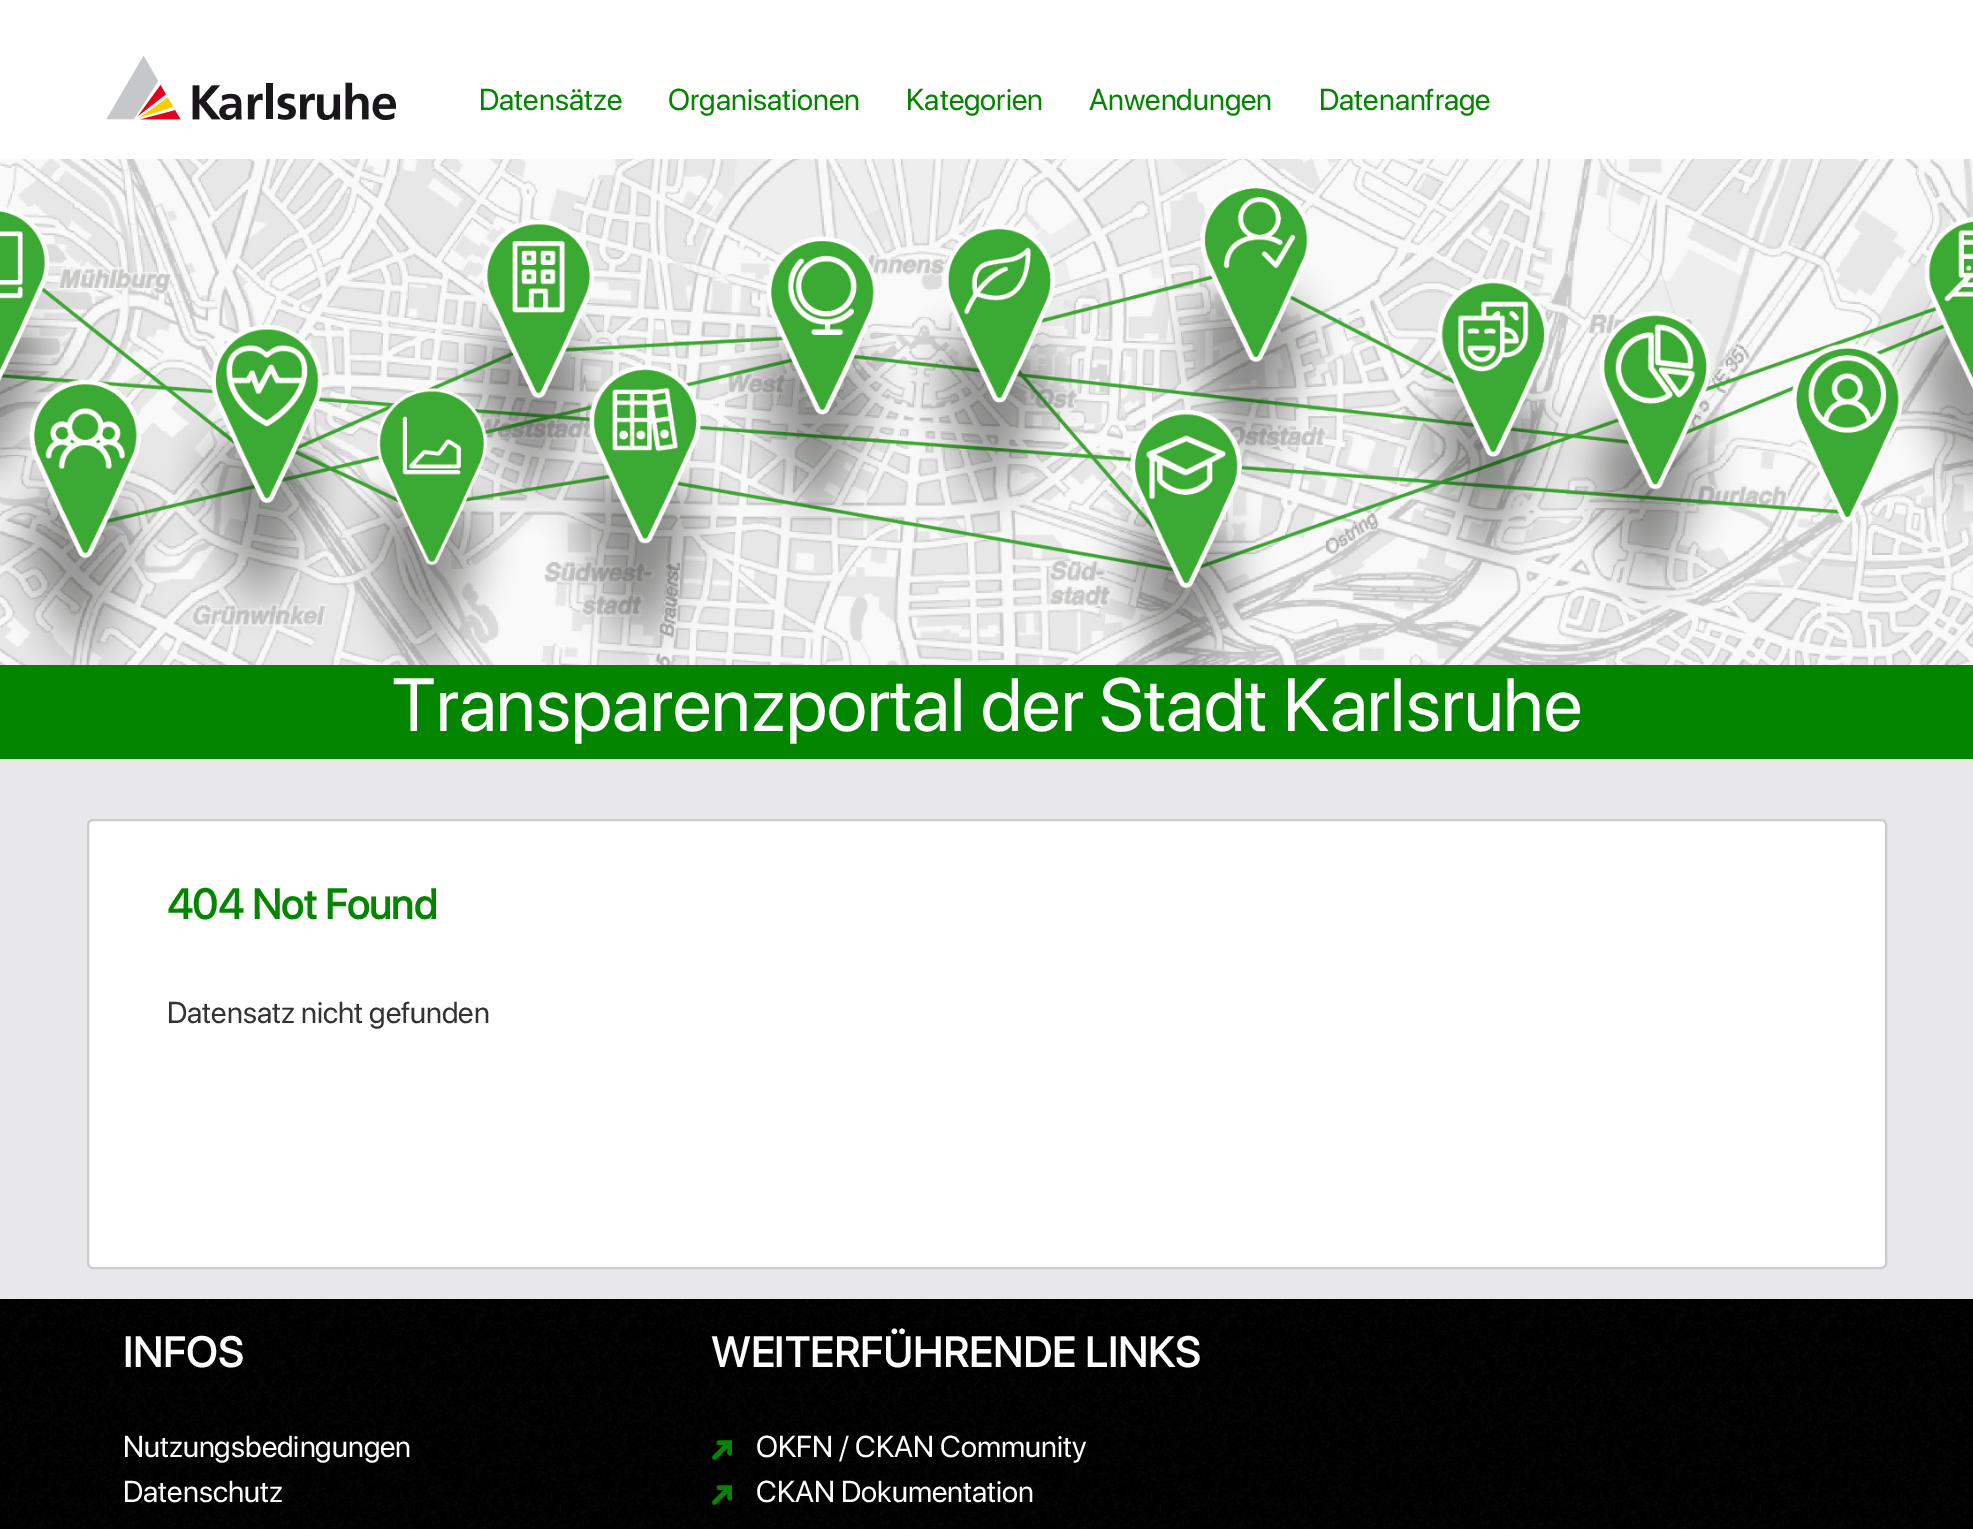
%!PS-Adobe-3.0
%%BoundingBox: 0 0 1973 1529
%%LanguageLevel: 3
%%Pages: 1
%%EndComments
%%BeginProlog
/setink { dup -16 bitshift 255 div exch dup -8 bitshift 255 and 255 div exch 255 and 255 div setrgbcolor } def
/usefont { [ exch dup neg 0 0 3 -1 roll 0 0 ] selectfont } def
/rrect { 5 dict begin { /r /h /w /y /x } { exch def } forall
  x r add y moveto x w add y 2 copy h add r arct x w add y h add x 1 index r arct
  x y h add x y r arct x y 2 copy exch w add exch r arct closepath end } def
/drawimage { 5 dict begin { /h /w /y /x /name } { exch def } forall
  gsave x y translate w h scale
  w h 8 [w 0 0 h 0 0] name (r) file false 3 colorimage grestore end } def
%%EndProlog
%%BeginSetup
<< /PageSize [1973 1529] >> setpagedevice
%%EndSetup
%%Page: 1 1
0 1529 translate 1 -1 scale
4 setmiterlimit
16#FFFFFF setink
0 0 1973 1529 rectfill
(img1.raw) 106 56 290 64 drawimage
/SFProDisplay-Regular 30 usefont
16#048500 setink
[
    [(Datensätze) 479 110]
    [(Organisationen) 668 110]
    [(Kategorien) 906 110]
    [(Anwendungen) 1089 110]
    [(Datenanfrage) 1319 110]
] { aload pop moveto show } forall
(img2.raw) 0 159 1973 506 drawimage
0 665 1973 94 rectfill
/SFProDisplay-Regular 75 usefont
16#FFFFFF setink
392 731 moveto (Transparenzportal der Stadt Karlsruhe) show
16#E8E8EB setink
0 759 1973 540 rectfill
16#FFFFFF setink
88 820 1798 448 5 rrect gsave fill grestore
16#CCCCCC setink
2 setlinewidth
stroke
/SFProDisplay-Bold 42 usefont
16#048500 setink
167 919 moveto (404 Not Found) show
/SFProDisplay-Regular 30 usefont
16#333333 setink
167 1023 moveto (Datensatz nicht gefunden) show
16#000000 setink
0 1299 1973 230 rectfill
(img3.raw) 0 1299 1973 230 drawimage
/SFProDisplay-Bold 42 usefont
16#FFFFFF setink
123 1367 moveto 0.75 0 (INFOS) ashow
/SFProDisplay-Regular 30 usefont
123 1457 moveto (Nutzungsbedingungen) show
123 1502 moveto (Datenschutz) show
/SFProDisplay-Bold 42 usefont
711 1367 moveto 0.75 0 (WEITERFÜHRENDE LINKS) ashow
16#048500 setink
4.6 setlinewidth
1 setlinecap
714.5 1457.5 moveto 728 1444 lineto 719 1442.5 moveto 729.5 1442.5 lineto 729.5 1453 lineto stroke
/SFProDisplay-Regular 30 usefont
16#FFFFFF setink
756 1457 moveto (OKFN / CKAN Community) show
16#048500 setink
714.5 1502.5 moveto 728 1489 lineto 719 1487.5 moveto 729.5 1487.5 lineto 729.5 1498 lineto stroke
16#FFFFFF setink
756 1502 moveto (CKAN Dokumentation) show
showpage
%%EOF
